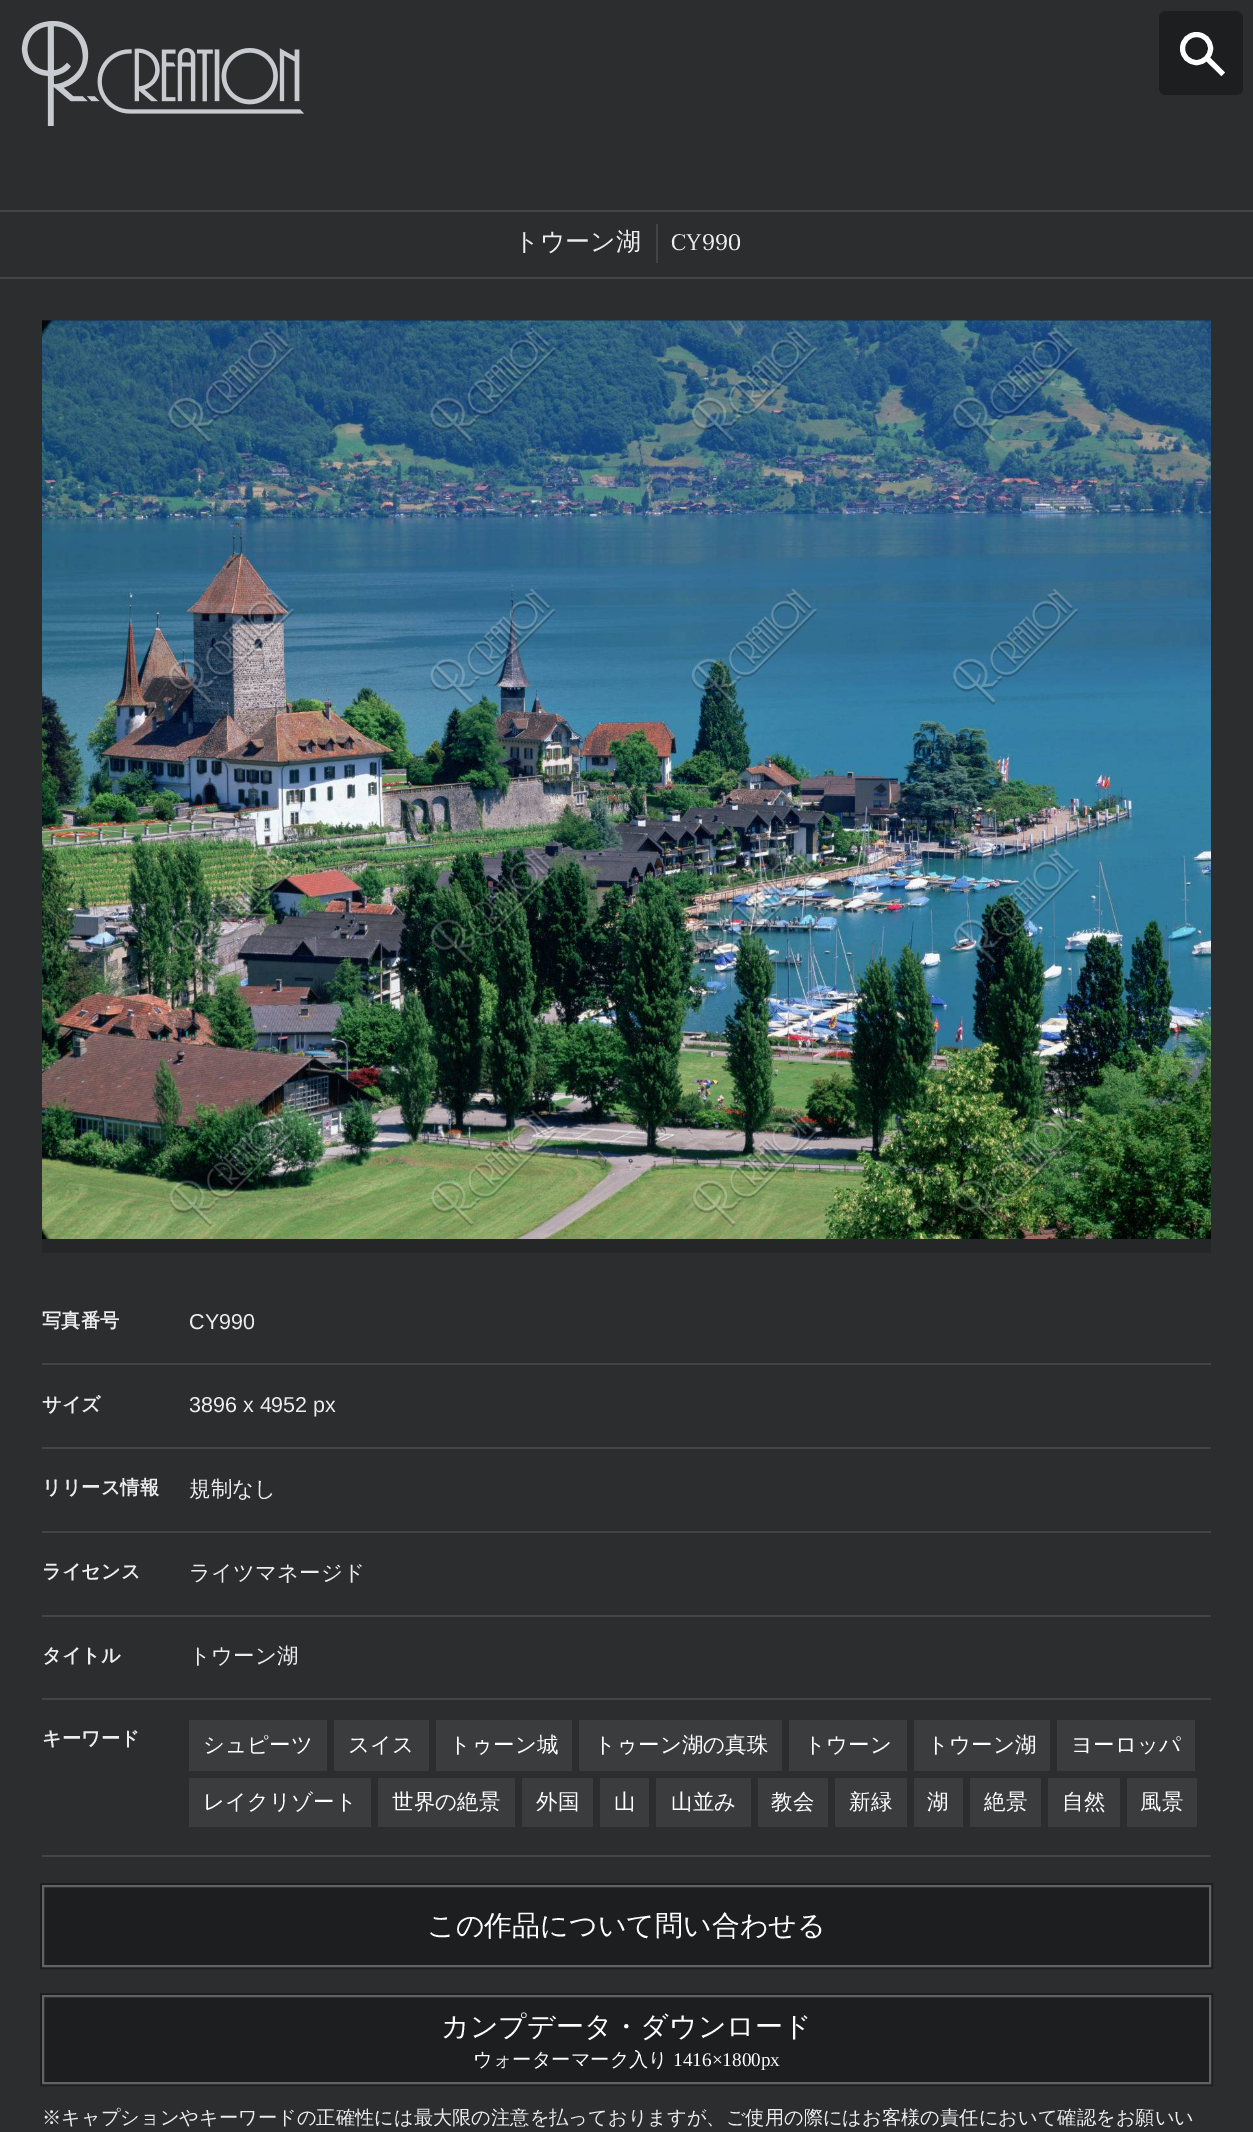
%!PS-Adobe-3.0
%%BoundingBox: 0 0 1253 2132
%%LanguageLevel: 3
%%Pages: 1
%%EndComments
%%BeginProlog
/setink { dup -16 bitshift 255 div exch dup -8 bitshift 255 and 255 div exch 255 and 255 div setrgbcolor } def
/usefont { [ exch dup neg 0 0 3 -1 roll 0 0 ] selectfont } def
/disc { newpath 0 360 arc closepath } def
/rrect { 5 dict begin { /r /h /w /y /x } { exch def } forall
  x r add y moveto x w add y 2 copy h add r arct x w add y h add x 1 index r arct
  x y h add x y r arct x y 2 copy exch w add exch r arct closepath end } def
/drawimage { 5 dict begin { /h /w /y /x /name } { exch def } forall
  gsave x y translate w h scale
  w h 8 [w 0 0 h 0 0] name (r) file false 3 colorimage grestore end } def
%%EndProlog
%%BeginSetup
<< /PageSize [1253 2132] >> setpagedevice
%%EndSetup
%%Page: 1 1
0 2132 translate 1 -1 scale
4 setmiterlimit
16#2C2D2F setink
0 0 1253 2132 rectfill
(img1.raw) 21 21 283 105 drawimage
16#1D1E1F setink
1159 11 84 84 7 rrect fill
16#FFFFFF setink
5 setlinewidth
1196.5 48.5 14 disc stroke
1207.5 55 moveto 1225 72.5 lineto 1221.5 76 lineto 1204 59 lineto closepath fill
16#40454A setink
0 210 1253 2 rectfill
0 277 1253 2 rectfill
/WenQuanYiZenHei-Medium 25 usefont
16#EDEDED setink
514 250 moveto (トウーン湖) show
/Taviraj-Regular 22.5 usefont
671 250 moveto (CY990) show
16#40454A setink
656 224 2 39 rectfill
16#252628 setink
42 320 1169 933 rectfill
(img2.raw) 42 320 1169 919 drawimage
16#40454A setink
42 1363 1169 2 rectfill
/WenQuanYiZenHei-Bold 19.25 usefont
16#EDEDED setink
42 1327 moveto (写真番号) show
/LiberationSans-Regular 21.5 usefont
189 1329 moveto (CY990) show
16#40454A setink
42 1447 1169 2 rectfill
/WenQuanYiZenHei-Bold 19.25 usefont
16#EDEDED setink
42 1411 moveto (サイズ) show
/LiberationSans-Regular 21.5 usefont
189 1412 moveto (3896 x 4952 px) show
16#40454A setink
42 1531 1169 2 rectfill
/WenQuanYiZenHei-Bold 19.25 usefont
16#EDEDED setink
42 1494 moveto (リリース情報) show
/WenQuanYiZenHei-Medium 21.5 usefont
189 1496 moveto (規制なし) show
16#40454A setink
42 1615 1169 2 rectfill
/WenQuanYiZenHei-Bold 19.25 usefont
16#EDEDED setink
42 1578 moveto (ライセンス) show
/WenQuanYiZenHei-Medium 21.5 usefont
189 1580 moveto (ライツマネージド) show
16#40454A setink
42 1698 1169 2 rectfill
/WenQuanYiZenHei-Bold 19.25 usefont
16#EDEDED setink
42 1662 moveto (タイトル) show
/WenQuanYiZenHei-Medium 21.5 usefont
189 1663 moveto (トウーン湖) show
16#40454A setink
42 1855 1169 2 rectfill
/WenQuanYiZenHei-Bold 19.25 usefont
16#EDEDED setink
42 1745 moveto (キーワード) show
16#3B3C3E setink
189 1720 138 51 rectfill
/WenQuanYiZenHei-Medium 21.5 usefont
16#FFFFFF setink
203 1752 moveto (シュピーツ) show
16#3B3C3E setink
334 1720 95 51 rectfill
16#FFFFFF setink
348 1752 moveto (スイス) show
16#3B3C3E setink
436 1720 136 51 rectfill
16#FFFFFF setink
449 1752 moveto (トゥーン城) show
16#3B3C3E setink
579 1720 203 51 rectfill
16#FFFFFF setink
594 1752 moveto (トゥーン湖の真珠) show
16#3B3C3E setink
789 1720 118 51 rectfill
16#FFFFFF setink
804 1752 moveto (トウーン) show
16#3B3C3E setink
914 1720 136 51 rectfill
16#FFFFFF setink
927 1752 moveto (トウーン湖) show
16#3B3C3E setink
1057 1720 138 51 rectfill
16#FFFFFF setink
1071 1752 moveto (ヨーロッパ) show
16#3B3C3E setink
189 1778 182 49 rectfill
16#FFFFFF setink
203 1809 moveto (レイクリゾート) show
16#3B3C3E setink
378 1778 137 49 rectfill
16#FFFFFF setink
392 1809 moveto (世界の絶景) show
16#3B3C3E setink
522 1778 71 49 rectfill
16#FFFFFF setink
536 1809 moveto (外国) show
16#3B3C3E setink
600 1778 49 49 rectfill
16#FFFFFF setink
614 1809 moveto (山) show
16#3B3C3E setink
656 1778 95 49 rectfill
16#FFFFFF setink
671 1809 moveto (山並み) show
16#3B3C3E setink
758 1778 70 49 rectfill
16#FFFFFF setink
771 1809 moveto (教会) show
16#3B3C3E setink
835 1778 72 49 rectfill
16#FFFFFF setink
849 1809 moveto (新緑) show
16#3B3C3E setink
914 1778 49 49 rectfill
16#FFFFFF setink
927 1809 moveto (湖) show
16#3B3C3E setink
970 1778 71 49 rectfill
16#FFFFFF setink
984 1809 moveto (絶景) show
16#3B3C3E setink
1048 1778 72 49 rectfill
16#FFFFFF setink
1062 1809 moveto (自然) show
16#3B3C3E setink
1127 1778 70 49 rectfill
16#FFFFFF setink
1140 1809 moveto (風景) show
16#1D1E1F setink
2 setlinewidth
41 1884 1171 84 rectstroke
43 1886 moveto 1210 1886 lineto 1210 1966 lineto 43 1966 lineto closepath gsave fill grestore
16#616262 setink
stroke
/WenQuanYiZenHei-Medium 28 usefont
16#FFFFFF setink
427 1935 moveto (この作品について問い合わせる) show
16#1D1E1F setink
41 1994 1171 91 rectstroke
43 1996 moveto 1210 1996 lineto 1210 2083 lineto 43 2083 lineto closepath gsave fill grestore
16#616262 setink
stroke
16#FFFFFF setink
441 2036 moveto (カンプデータ・ダウンロード) show
/WenQuanYiZenHei-Medium 19.25 usefont
473 2066 moveto (ウォーターマーク入り) show
/LiberationSerif-Regular 19.25 usefont
673 2066 moveto (1416×1800px) show
/WenQuanYiZenHei-Medium 19.25 usefont
16#EDEDED setink
42 2124 moveto (※キャプションやキーワードの正確性には最大限の注意を払っておりますが、ご使用の際にはお客様の責任において確認をお願いい) show
showpage
%%EOF
